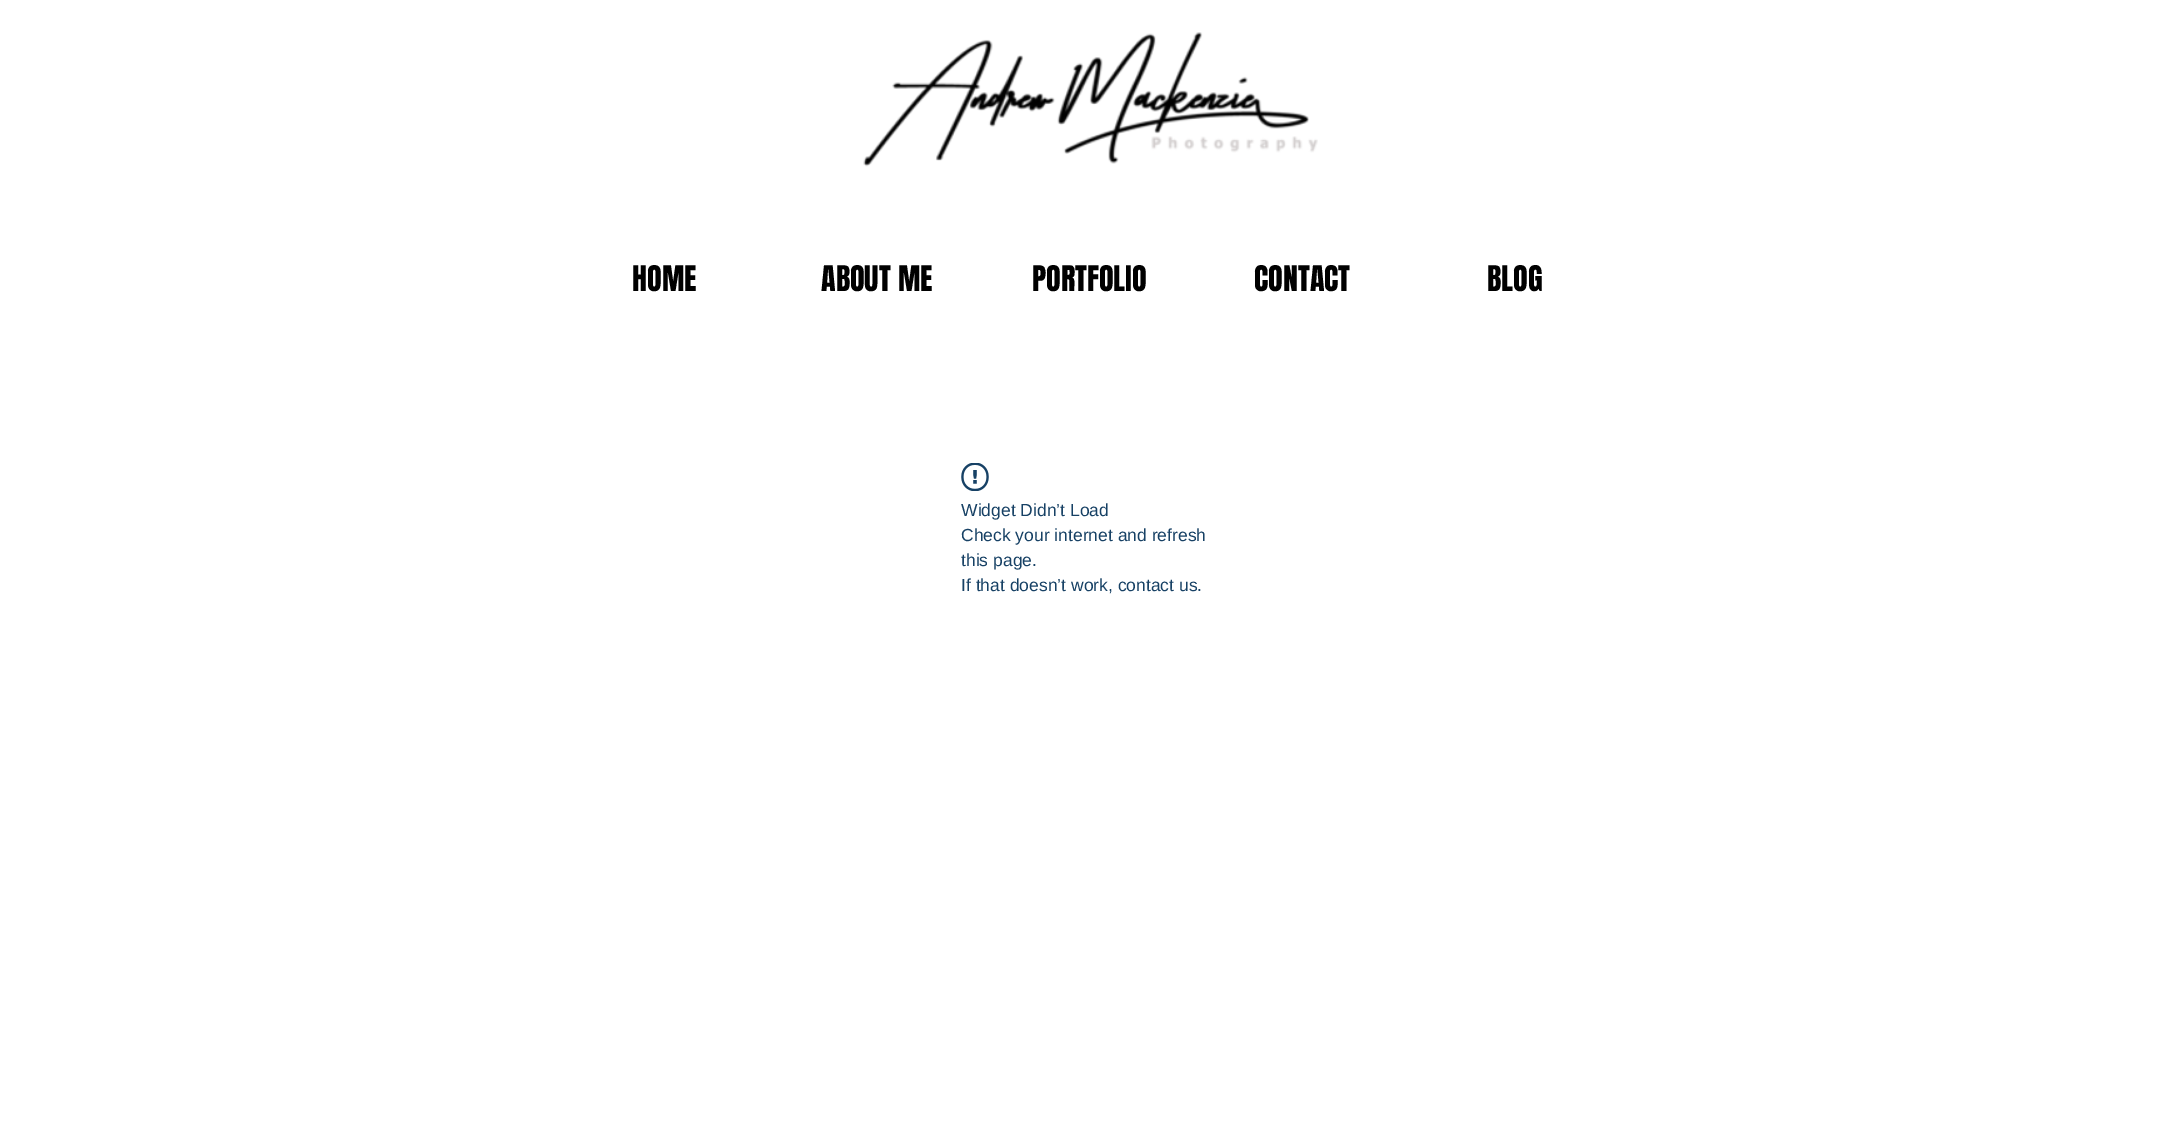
%!PS-Adobe-3.0
%%BoundingBox: 0 0 2178 1139
%%LanguageLevel: 3
%%Pages: 1
%%EndComments
%%BeginProlog
/setink { dup -16 bitshift 255 div exch dup -8 bitshift 255 and 255 div exch 255 and 255 div setrgbcolor } def
/usefont { [ exch dup neg 0 0 3 -1 roll 0 0 ] selectfont } def
/drawimage { 5 dict begin { /h /w /y /x /name } { exch def } forall
  gsave x y translate w h scale
  w h 8 [w 0 0 h 0 0] name (r) file false 3 colorimage grestore end } def
%%EndProlog
%%BeginSetup
<< /PageSize [2178 1139] >> setpagedevice
%%EndSetup
%%Page: 1 1
0 1139 translate 1 -1 scale
4 setmiterlimit
16#FFFFFF setink
0 0 2178 1139 rectfill
(img1.raw) 863 32 455 135 drawimage
/Anton-Regular 30 usefont
16#000000 setink
[
    [(HOME) 632 291]
    [(ABOUT ME) 821 291]
    [(PORTFOLIO) 1032 291]
    [(CONTACT) 1254 291]
    [(BLOG) 1487 291]
] { aload pop moveto show } forall
(img2.raw) 961 463 28 28 drawimage
/LiberationSans-Regular 17.5 usefont
16#174165 setink
[
    [(Widget Didn’t Load) 961 516]
    [(Check your internet and refresh) 961 541]
    [(this page.) 961 566]
    [(If that doesn’t work, contact us.) 961 591]
] { aload pop moveto show } forall
showpage
%%EOF
